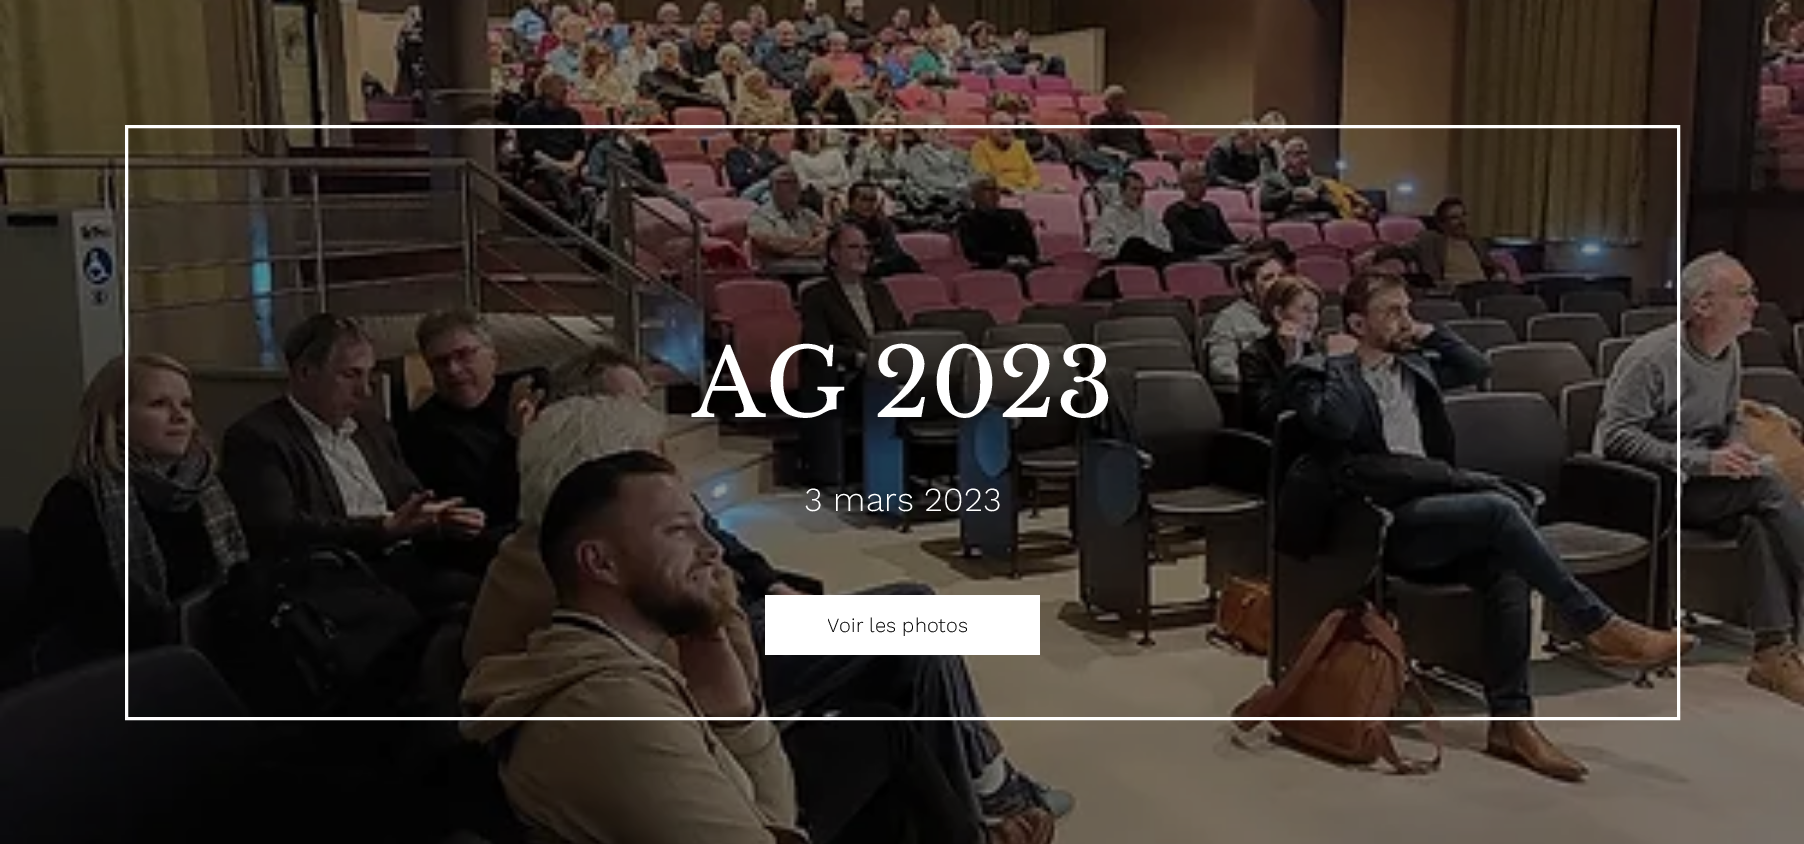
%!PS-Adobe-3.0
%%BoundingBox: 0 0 1804 844
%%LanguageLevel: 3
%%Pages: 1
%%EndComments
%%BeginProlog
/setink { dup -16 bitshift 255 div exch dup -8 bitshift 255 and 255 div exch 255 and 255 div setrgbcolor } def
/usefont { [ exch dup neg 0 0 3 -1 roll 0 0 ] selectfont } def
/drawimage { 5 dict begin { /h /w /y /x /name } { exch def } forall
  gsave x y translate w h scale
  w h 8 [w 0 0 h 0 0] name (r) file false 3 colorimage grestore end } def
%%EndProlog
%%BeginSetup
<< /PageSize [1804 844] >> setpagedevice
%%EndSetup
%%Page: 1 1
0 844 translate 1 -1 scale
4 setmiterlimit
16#000000 setink
0 0 1804 844 rectfill
(img1.raw) 0 0 1804 844 drawimage
16#FFFFFF setink
3 setlinewidth
126.5 126.5 1552 592 rectstroke
/LibreBaskerville-Regular 94 usefont
692 417 moveto (AG 2023) show
/WorkSans-Light 33.75 usefont
804 511 moveto (3 mars 2023) show
765 595 275 60 rectfill
gsave
828 613 140 23 rectclip
/WorkSans-Light 20 usefont
16#000000 setink
827 632 moveto (Voir les photos) show
grestore
showpage
%%EOF
